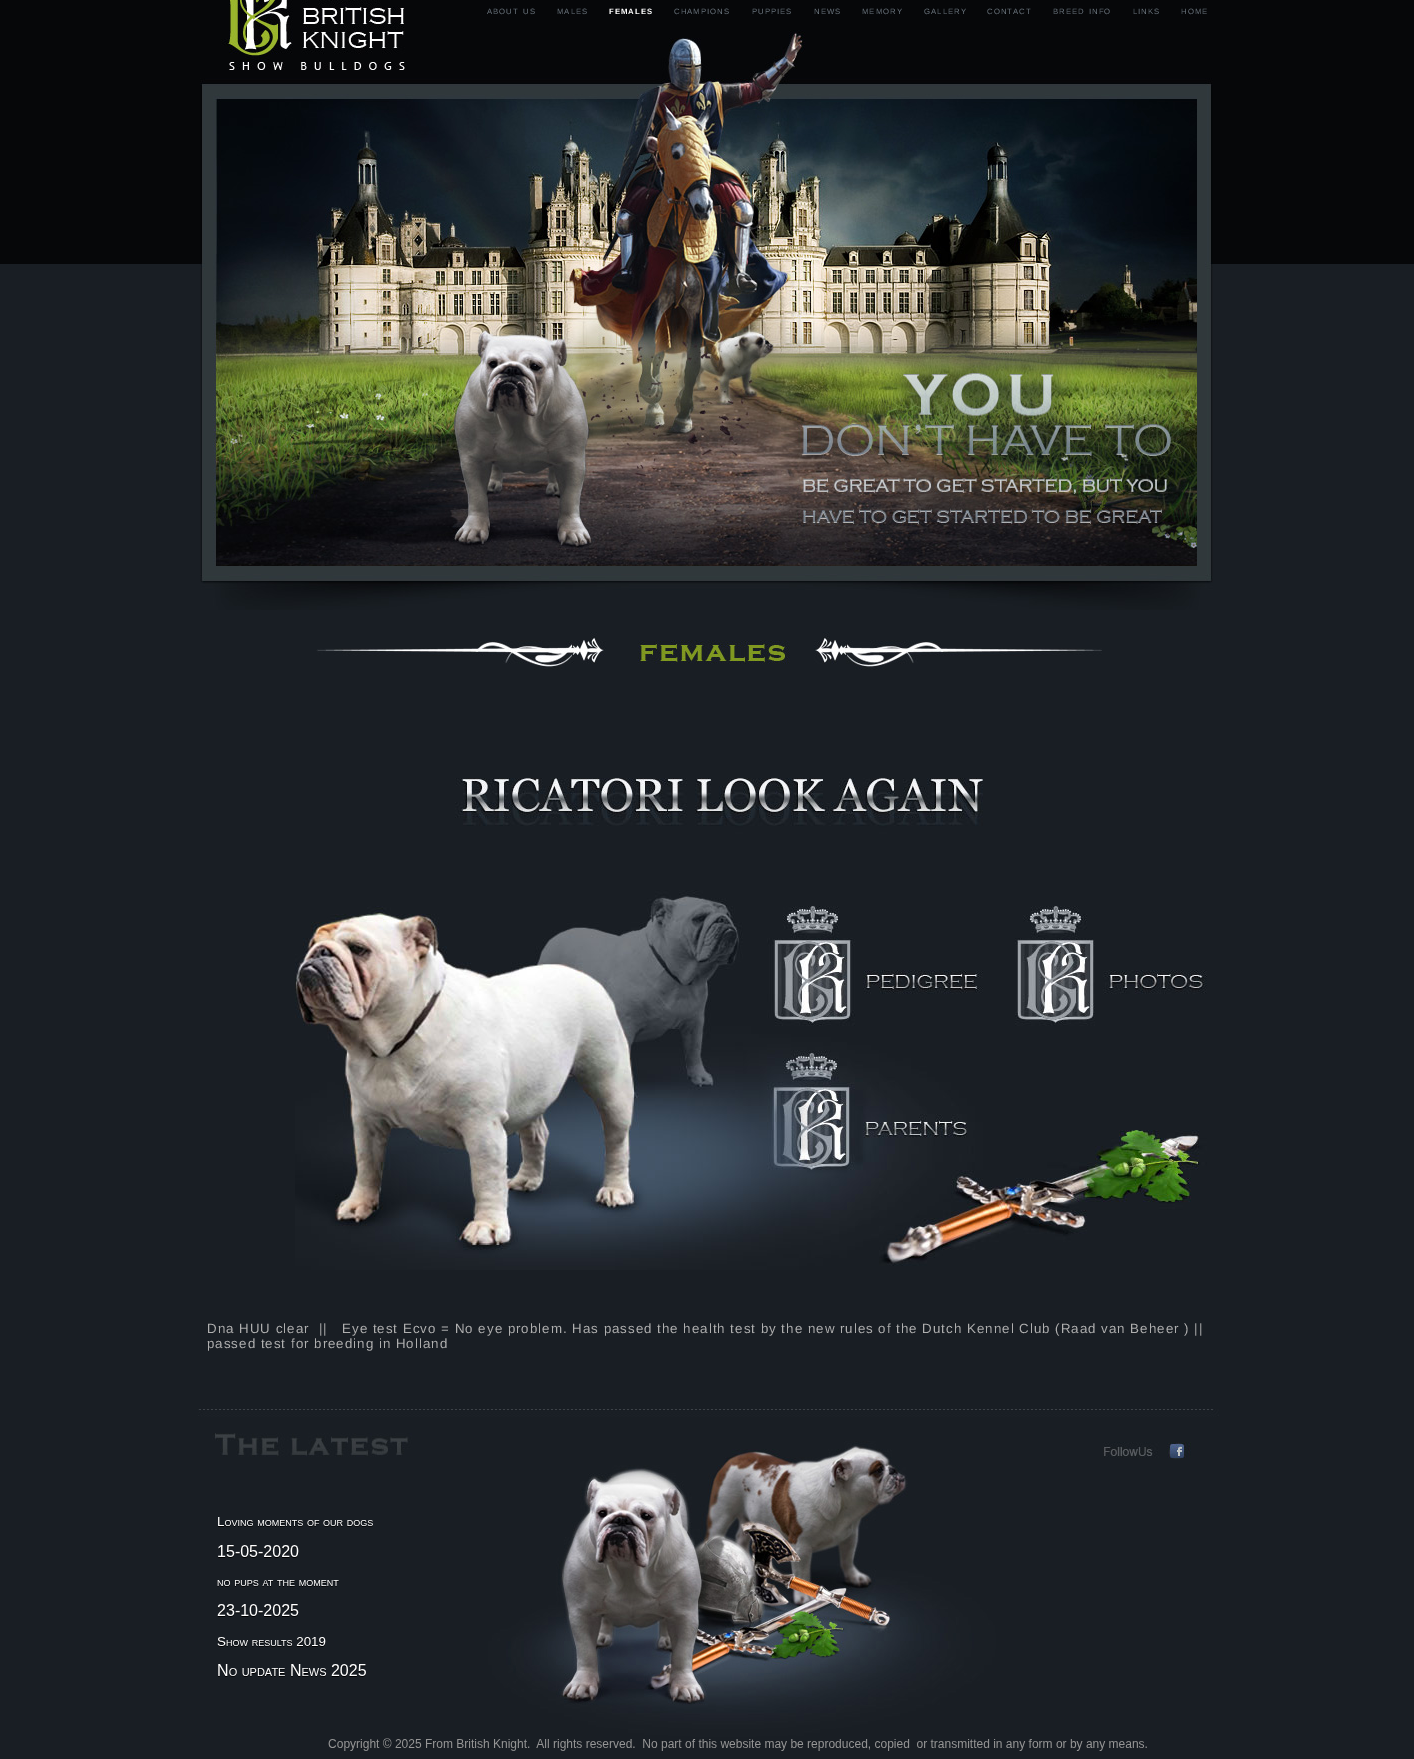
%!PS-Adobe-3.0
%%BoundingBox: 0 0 1414 1759
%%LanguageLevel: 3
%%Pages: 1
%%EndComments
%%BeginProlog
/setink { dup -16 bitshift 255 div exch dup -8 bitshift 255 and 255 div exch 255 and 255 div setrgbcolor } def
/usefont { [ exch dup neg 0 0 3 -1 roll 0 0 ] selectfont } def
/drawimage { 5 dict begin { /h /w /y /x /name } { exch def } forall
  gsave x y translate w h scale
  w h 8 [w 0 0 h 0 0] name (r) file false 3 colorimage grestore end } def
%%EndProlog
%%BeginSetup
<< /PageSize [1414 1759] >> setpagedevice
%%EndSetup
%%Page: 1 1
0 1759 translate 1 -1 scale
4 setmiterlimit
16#191E24 setink
0 0 1414 1759 rectfill
16#060709 setink
0 0 1414 264 rectfill
(img1.raw) 200 0 1013 610 drawimage
/LiberationSans-Regular 7.75 usefont
16#6B757E setink
487 14 moveto 1 0 (ABOUT) ashow
523 14 moveto 1 0 (US) ashow
557 14 moveto 1 0 (MALES) ashow
/LiberationSans-Bold 7.75 usefont
16#FFFFFF setink
609 14 moveto 1 0 (FEMALES) ashow
/LiberationSans-Regular 7.75 usefont
16#6B757E setink
674 14 moveto 1 0 (CHAMPIONS) ashow
752 14 moveto 1 0 (PUPPIES) ashow
814 14 moveto 1 0 (NEWS) ashow
862 14 moveto 1 0 (MEMORY) ashow
924 14 moveto 1 0 (GALLERY) ashow
987 14 moveto 1 0 (CONTACT) ashow
1053 14 moveto 1 0 (BREED) ashow
1089 14 moveto 1 0 (INFO) ashow
1133 14 moveto 1 0 (LINKS) ashow
1181 14 moveto 1 0 (HOME) ashow
(img2.raw) 316 632 786 38 drawimage
(img3.raw) 295 778 912 492 drawimage
/LiberationSans-Regular 13.33 usefont
16#AFAFAF setink
207 1333 moveto 1 0 (Dna HUU clear  ||   Eye test Ecvo = No eye problem. Has passed the health test by the new rules of the Dutch Kennel Club \(Raad van Beheer \) ||) ashow
207 1348 moveto 1 0 (passed test for breeding in Holland) ashow
(img4.raw) 198 1409 1021 342 drawimage
showpage
%%EOF
